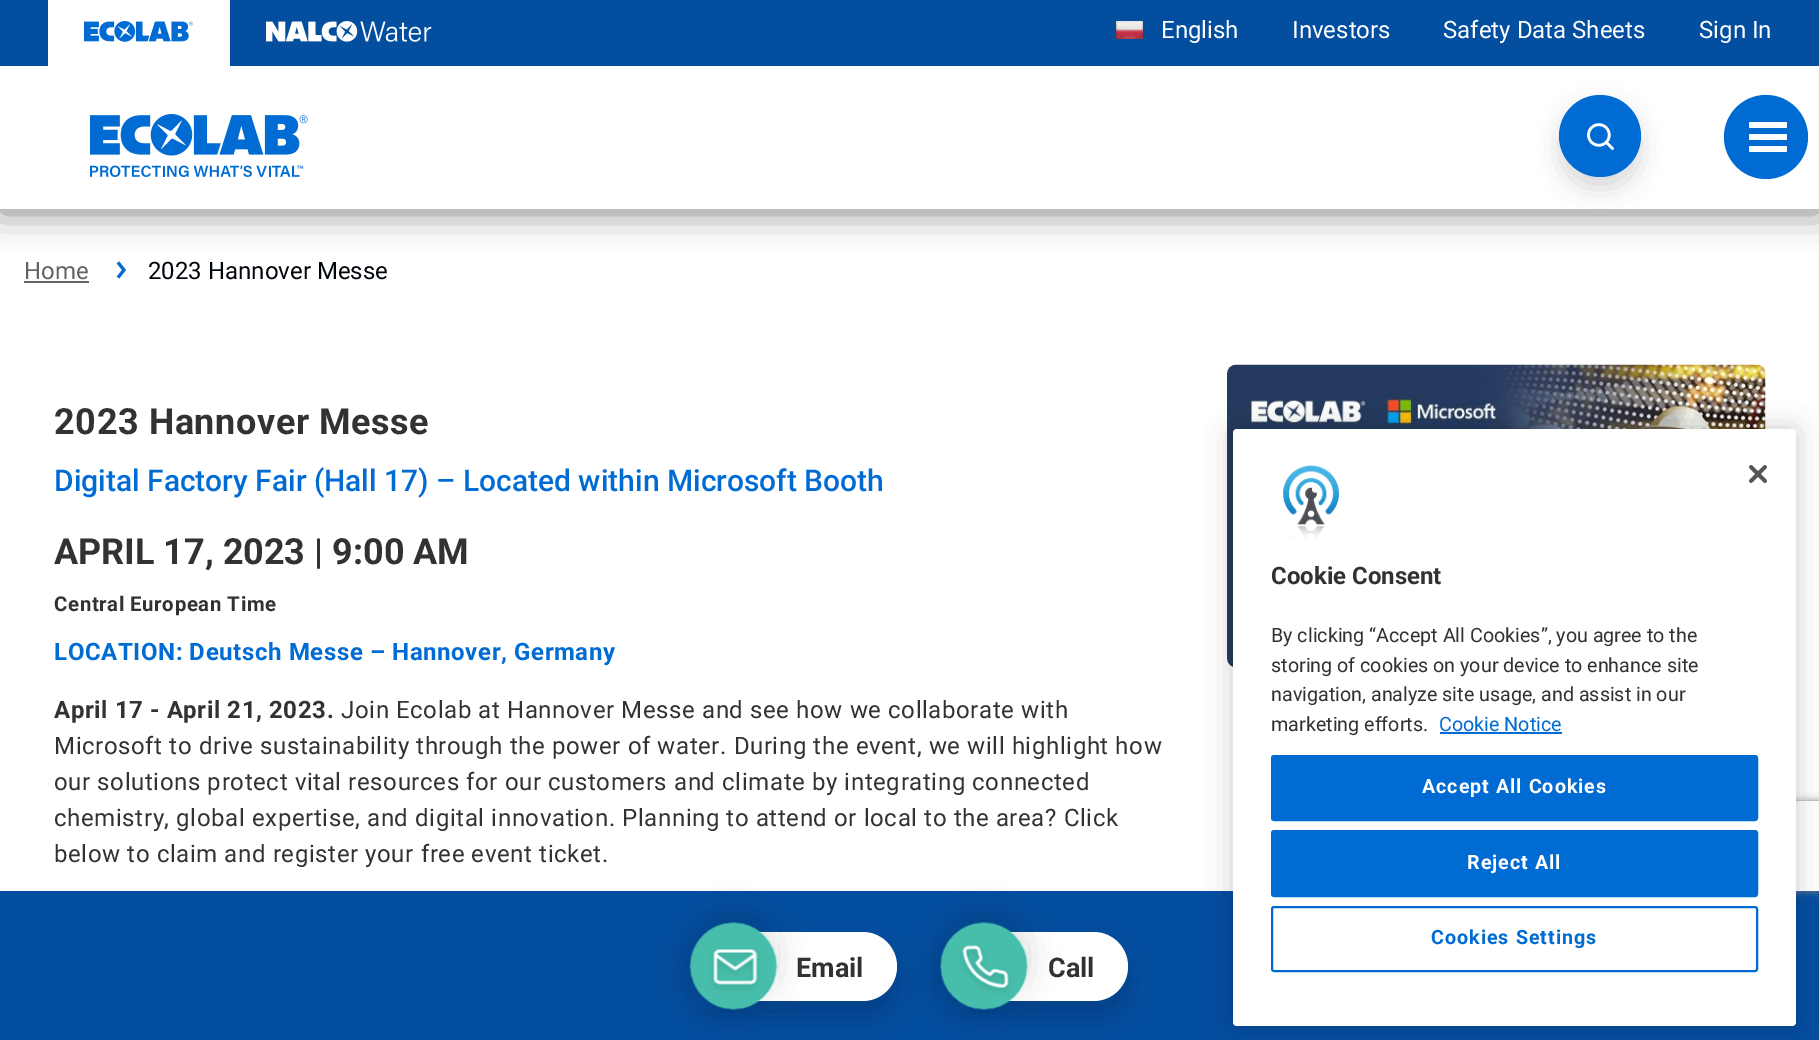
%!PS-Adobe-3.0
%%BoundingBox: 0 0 1819 1040
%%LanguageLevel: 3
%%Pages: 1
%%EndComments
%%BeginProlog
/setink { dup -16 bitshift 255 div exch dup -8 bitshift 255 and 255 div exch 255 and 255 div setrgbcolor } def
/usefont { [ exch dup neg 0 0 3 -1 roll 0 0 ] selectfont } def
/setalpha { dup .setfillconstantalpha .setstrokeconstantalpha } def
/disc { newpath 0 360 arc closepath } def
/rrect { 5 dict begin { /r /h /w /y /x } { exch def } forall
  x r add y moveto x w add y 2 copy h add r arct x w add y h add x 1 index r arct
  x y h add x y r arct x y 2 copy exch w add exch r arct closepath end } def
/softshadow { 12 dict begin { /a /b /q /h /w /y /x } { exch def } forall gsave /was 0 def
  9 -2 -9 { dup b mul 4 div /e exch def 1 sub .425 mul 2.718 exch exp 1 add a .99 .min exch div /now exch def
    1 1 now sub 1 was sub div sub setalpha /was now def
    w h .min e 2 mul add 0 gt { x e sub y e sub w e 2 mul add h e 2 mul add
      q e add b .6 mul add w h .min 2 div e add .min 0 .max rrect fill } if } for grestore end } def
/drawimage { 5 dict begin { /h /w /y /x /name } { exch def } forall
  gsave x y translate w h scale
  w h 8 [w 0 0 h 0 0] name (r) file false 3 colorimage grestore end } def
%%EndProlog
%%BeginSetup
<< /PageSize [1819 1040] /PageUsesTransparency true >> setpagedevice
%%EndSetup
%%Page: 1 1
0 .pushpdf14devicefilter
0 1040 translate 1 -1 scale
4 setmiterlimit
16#FFFFFF setink
0 0 1819 1040 rectfill
16#006BD3 setink
3 setlinewidth
118 262.5 moveto 124 270 lineto 118 277.5 lineto stroke
gsave
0 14 moveto 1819 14 lineto 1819 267 lineto 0 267 lineto closepath 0 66 moveto 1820 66 lineto 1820 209 lineto 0 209 lineto closepath eoclip newpath
16#000000 setink
0 69 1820 143 0 18 0.5 softshadow
grestore
(img1.raw) 90 114 218 63 drawimage
16#000000 setink
1559 107 82 82 41 12 0.15 softshadow
16#006BD3 setink
1600 136 41 disc fill
(img2.raw) 1587 123 27 27 drawimage
1766 137 42 disc fill
16#FFFFFF setink
1749 122 38 6 1.5 rrect fill
1749 134 38 6 1.5 rrect fill
1749 146 38 6 1.5 rrect fill
16#044EA0 setink
0 0 1819 66 rectfill
16#FFFFFF setink
48 0 182 66 rectfill
(img3.raw) 84 21 109 21 drawimage
(img4.raw) 266 21 166 21 drawimage
(img5.raw) 1116 21 27 18 drawimage
/Roboto-Regular 24 usefont
[
    [(English) 1161 38]
    [(Investors) 1292 38]
    [(Safety Data Sheets) 1443 38]
    [(Sign In) 1699 38]
] { aload pop moveto show } forall
16#616365 setink
24 279 moveto (Home) show
24 281 65 2 rectfill
16#00050B setink
148 279 moveto (2023 Hannover Messe) show
/Roboto-Bold 36 usefont
16#313233 setink
54 434 moveto 0.6 0 (2023 Hannover Messe) ashow
/Roboto-Medium 30 usefont
16#006BD3 setink
54 491 moveto (Digital Factory Fair \(Hall 17\) – Located within Microsoft Booth) show
/Roboto-Bold 36 usefont
16#313233 setink
54 564 moveto (APRIL 17, 2023 | 9:00 AM) show
/Roboto-Bold 20.4 usefont
54 611 moveto 0.6 0 (Central European Time) ashow
/Roboto-Bold 24 usefont
16#006BD3 setink
54 660 moveto 0.6 0 (LOCATION: Deutsch Messe – Hannover, Germany) ashow
16#313233 setink
54 718 moveto 0.6 0 (April 17 - April 21, 2023.) ashow
/Roboto-Regular 24 usefont
341 718 moveto 0.6 0 (Join Ecolab at Hannover Messe and see how we collaborate with) ashow
54 754 moveto 0.6 0 (Microsoft to drive sustainability through the power of water. During the event, we will highlight how) ashow
54 790 moveto 0.6 0 (our solutions protect vital resources for our customers and climate by integrating connected) ashow
54 826 moveto 0.6 0 (chemistry, global expertise, and digital innovation. Planning to attend or local to the area? Click) ashow
54 862 moveto 0.6 0 (below to claim and register your free event ticket.) ashow
(img6.raw) 1227 364 539 303 drawimage
16#044EA0 setink
0 891 1819 149 rectfill
16#000000 setink
1233 429 563 597 4 13.5 0.2 softshadow
gsave
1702 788 moveto 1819 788 lineto 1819 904 lineto 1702 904 lineto closepath 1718 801 moveto 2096 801 lineto 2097.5 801 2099 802.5 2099 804 curveto 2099 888 lineto 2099 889.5 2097.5 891 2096 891 curveto 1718 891 lineto 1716.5 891 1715 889.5 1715 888 curveto 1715 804 lineto 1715 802.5 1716.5 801 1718 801 curveto closepath eoclip newpath
16#808080 setink
1715 801 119 90 3 4 1 softshadow
grestore
16#FFFFFF setink
1233 429 563 597 4 rrect fill
(img7.raw) 1749 465 18 18 drawimage
(img8.raw) 1282 465 57 74 drawimage
/Roboto-Bold 24 usefont
16#313233 setink
1271 584 moveto (Cookie Consent) show
/Roboto-Regular 19.7 usefont
[
    [(By clicking “Accept All Cookies”, you agree to the) 1271 642]
    [(storing of cookies on your device to enhance site) 1271 672]
    [(navigation, analyze site usage, and assist in our) 1271 701]
    [(marketing efforts.) 1271 731]
] { aload pop moveto show } forall
16#006BD3 setink
1439 731 moveto (Cookie Notice) show
1440 732 122 2 rectfill
1272 756 485 64 2 rrect gsave fill grestore
2 setlinewidth
stroke
/Roboto-Bold 19.7 usefont
16#FFFFFF setink
1422 793 moveto 1 0 (Accept All Cookies) ashow
16#006BD3 setink
1272 831 485 65 2 rrect gsave fill grestore
stroke
16#FFFFFF setink
1467 869 moveto 1 0 (Reject All) ashow
16#006BD3 setink
1272 907 485 64 2 rrect stroke
1431 944 moveto 1 0 (Cookies Settings) ashow
16#000000 setink
692 948 205 69 34.5 15 0.16 softshadow
16#FFFFFF setink
692 932 205 69 34.5 rrect fill
16#000000 setink
690 914 87 87 43.5 15 0.15 softshadow
(img9.raw) 689 922 89 88 drawimage
/Roboto-Bold 27 usefont
16#313233 setink
796 977 moveto (Email) show
16#000000 setink
942 948 186 69 34.5 15 0.16 softshadow
16#FFFFFF setink
942 932 186 69 34.5 rrect fill
16#000000 setink
941 914 87 87 43.5 15 0.15 softshadow
(img10.raw) 940 922 88 88 drawimage
16#313233 setink
1048 977 moveto (Call) show
.poppdf14devicefilter showpage
%%EOF
